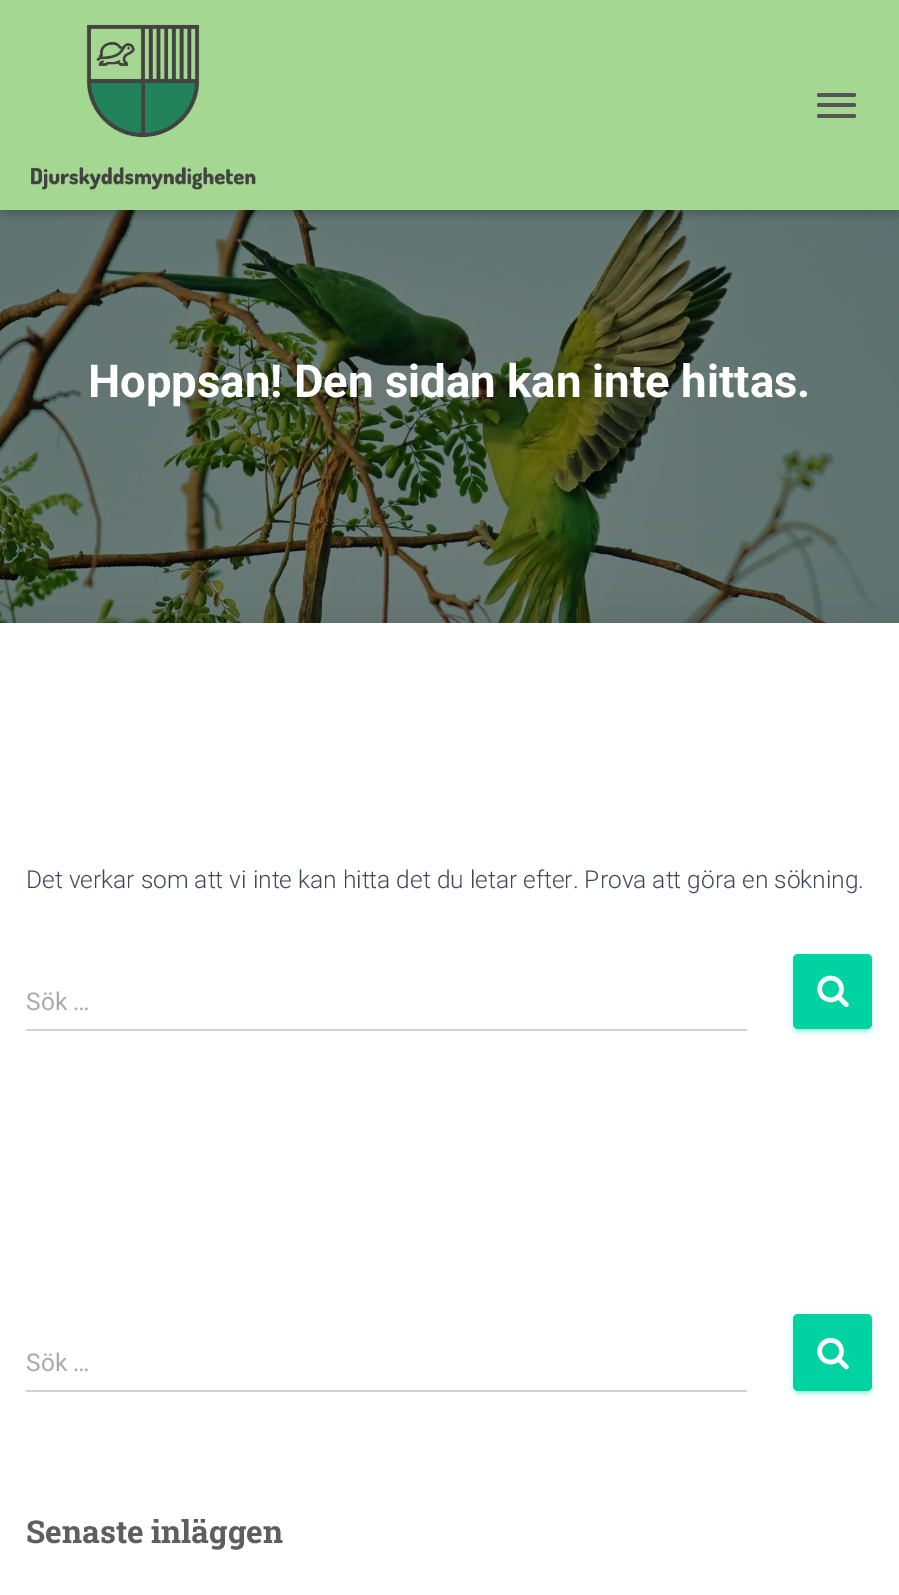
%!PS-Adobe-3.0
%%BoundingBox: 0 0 899 1595
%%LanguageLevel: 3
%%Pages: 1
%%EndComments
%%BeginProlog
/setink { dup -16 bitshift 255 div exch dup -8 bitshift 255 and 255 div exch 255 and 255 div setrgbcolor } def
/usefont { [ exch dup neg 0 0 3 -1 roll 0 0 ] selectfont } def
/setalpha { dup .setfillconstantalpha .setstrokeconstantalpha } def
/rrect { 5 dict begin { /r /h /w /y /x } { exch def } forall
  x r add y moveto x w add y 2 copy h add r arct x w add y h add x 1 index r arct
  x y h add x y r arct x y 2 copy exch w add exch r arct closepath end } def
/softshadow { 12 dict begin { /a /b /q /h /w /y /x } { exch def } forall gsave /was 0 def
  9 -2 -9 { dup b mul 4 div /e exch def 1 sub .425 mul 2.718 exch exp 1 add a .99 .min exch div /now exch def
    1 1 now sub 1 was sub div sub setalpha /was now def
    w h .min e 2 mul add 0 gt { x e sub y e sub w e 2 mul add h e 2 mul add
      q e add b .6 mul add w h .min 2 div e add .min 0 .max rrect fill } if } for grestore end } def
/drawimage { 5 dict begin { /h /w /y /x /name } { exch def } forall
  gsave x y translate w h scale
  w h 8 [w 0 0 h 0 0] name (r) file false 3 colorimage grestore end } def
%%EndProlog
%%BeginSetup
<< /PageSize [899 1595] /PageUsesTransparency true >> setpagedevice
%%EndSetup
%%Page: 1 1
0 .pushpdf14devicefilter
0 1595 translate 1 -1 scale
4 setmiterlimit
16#FFFFFF setink
0 0 899 1595 rectfill
(img2.raw) 0 210 899 413 drawimage
16#000000 setink
4 11 892 203 0 4.5 0.1 softshadow
0 2 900 210 0 9 0.12 softshadow
11 12 878 189 0 9 0.42 softshadow
16#A4D792 setink
0 0 899 210 rectfill
(img1.raw) 31 24 225 166 drawimage
16#555555 setink
817 93 39 4 2 rrect fill
817 103 39 4 2 rrect fill
817 114 39 4 2 rrect fill
/Roboto-Bold 45.5 usefont
16#FFFFFF setink
88 397 moveto (Hoppsan! Den sidan kan inte hittas.) show
16#000000 setink
-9 625 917 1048 0 26 0.12 softshadow
16#FFFFFF setink
0 623 899 972 rectfill
/Roboto-Light 24.5 usefont
16#3C4858 setink
26 888 moveto (Det verkar som att vi inte kan hitta det du letar efter. Prova att göra en sökning.) show
/Roboto-Regular 24.5 usefont
16#AAAAAA setink
26 1010 moveto (Sök …) show
16#D2D2D2 setink
26 1029 721 2 rectfill
16#00D3A2 setink
793 956 79 75 5 4.5 0.12 softshadow
796 963 72 68 2 1 0.2 softshadow
793 957 79 76 5 2 0.14 softshadow
793 954 79 75 5 rrect fill
(img3.raw) 817 975 32 33 drawimage
16#AAAAAA setink
26 1371 moveto (Sök …) show
16#D2D2D2 setink
26 1390 721 2 rectfill
16#00D3A2 setink
793 1316 79 77 5 4.5 0.12 softshadow
796 1323 72 70 2 1 0.2 softshadow
793 1318 79 77 5 2 0.14 softshadow
793 1314 79 77 5 rrect fill
(img4.raw) 817 1337 32 33 drawimage
/RobotoSlab-Bold 31.5 usefont
16#5E5E5E setink
26 1543 moveto (Senaste inläggen) show
.poppdf14devicefilter showpage
%%EOF
